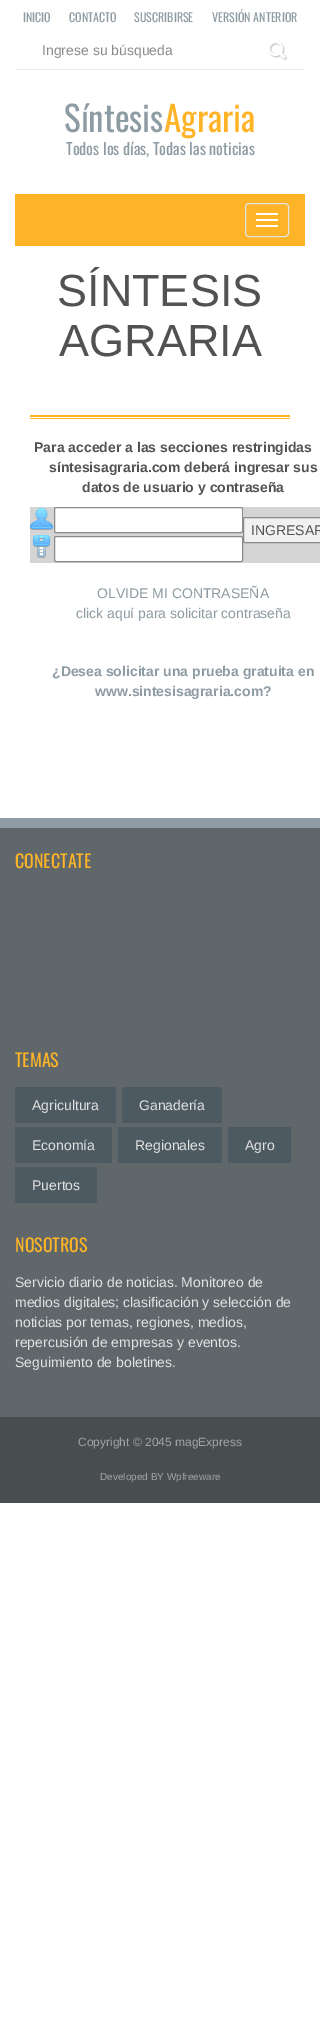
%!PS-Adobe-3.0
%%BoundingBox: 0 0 320 2044
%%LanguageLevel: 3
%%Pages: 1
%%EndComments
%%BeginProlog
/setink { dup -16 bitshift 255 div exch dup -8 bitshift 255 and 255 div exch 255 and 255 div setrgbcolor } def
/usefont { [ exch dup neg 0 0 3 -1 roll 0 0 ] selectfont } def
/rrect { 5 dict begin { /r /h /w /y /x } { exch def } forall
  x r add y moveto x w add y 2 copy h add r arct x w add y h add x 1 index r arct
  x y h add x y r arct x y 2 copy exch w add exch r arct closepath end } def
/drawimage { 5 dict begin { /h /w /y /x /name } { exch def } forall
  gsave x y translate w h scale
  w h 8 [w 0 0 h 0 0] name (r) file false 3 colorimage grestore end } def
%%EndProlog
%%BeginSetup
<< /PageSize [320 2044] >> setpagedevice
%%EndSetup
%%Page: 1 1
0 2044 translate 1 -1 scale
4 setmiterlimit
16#FFFFFF setink
0 0 320 2044 rectfill
16#EAEAEA setink
15 69 290 1 rectfill
/Oswald-Regular 12 usefont
16#8D9BA2 setink
[
    [(INICIO) 23 22]
    [(CONTACTO) 69 22]
    [(SUSCRIBIRSE) 134 22]
    [(VERSIÓN ANTERIOR) 212 22]
] { aload pop moveto show } forall
/LiberationSans-Regular 14 usefont
16#8A8A8A setink
42 55 moveto (Ingrese su búsqueda) show
(img1.raw) 268 41 20 20 drawimage
/Oswald-Regular 35 usefont
16#8D9BA2 setink
64 132 moveto (Síntesis) show
16#FFB326 setink
164 132 moveto (Agraria) show
/Oswald-Regular 16 usefont
16#8D9BA2 setink
66 155 moveto (Todos los días, Todas las noticias) show
16#FFB326 setink
15 194 290 52 rectfill
16#E2E2E2 setink
245.5 203.5 43 33 3.5 rrect stroke
16#FFFFFF setink
256 213 22 2 1 rrect fill
256 219 22 2 1 rrect fill
256 225 22 2 1 rrect fill
/LiberationSans-Regular 45 usefont
16#525252 setink
57 306 moveto (SÍNTESIS) show
59 356 moveto (AGRARIA) show
16#FFB326 setink
30 415 260 2 rectfill
30 418 260 1 rectfill
/LiberationSans-Bold 14 usefont
16#525252 setink
[
    [(Para acceder a las secciones restringidas) 34 452]
    [(síntesisagraria.com deberá ingresar sus) 49 472]
    [(datos de usuario y contraseña) 82 492]
] { aload pop moveto show } forall
16#D4D4D4 setink
30 507 213 28 rectfill
(img2.raw) 30 508 23 22 drawimage
16#FFFFFF setink
54.5 507.5 188 25 1.5 rrect gsave fill grestore
16#8B8B8B setink
stroke
16#D4D4D4 setink
243 507 77 56 rectfill
16#F1F1F1 setink
243.5 517.5 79 25 1.5 rrect gsave fill grestore
16#8B8B8B setink
stroke
/LiberationSans-Regular 14 usefont
16#525252 setink
251 535 moveto (INGRESAR) show
16#D4D4D4 setink
30 535 213 28 rectfill
(img3.raw) 33 535 17 23 drawimage
16#FFFFFF setink
54.5 536.5 188 25 1.5 rrect gsave fill grestore
16#8B8B8B setink
stroke
16#8D9BA2 setink
97 598 moveto (OLVIDE MI CONTRASEÑA) show
76 618 moveto (click aquí para solicitar contraseña) show
/LiberationSans-Bold 14 usefont
52 676 moveto (¿Desea solicitar una prueba gratuita en) show
95 696 moveto (www.sintesisagraria.com?) show
0 818 320 10 rectfill
16#5F676B setink
0 828 320 589 rectfill
/Oswald-Regular 18 usefont
16#FFB326 setink
15 868 moveto (CONECTATE) show
15 1067 moveto (TEMAS) show
16#4D5A61 setink
15 1087 101 36 rectfill
/LiberationSans-Regular 14 usefont
16#E2E2E2 setink
32 1110 moveto (Agricultura) show
16#4D5A61 setink
122 1087 100 36 rectfill
16#E2E2E2 setink
139 1110 moveto (Ganadería) show
16#4D5A61 setink
15 1127 97 36 rectfill
16#E2E2E2 setink
32 1150 moveto (Economía) show
16#4D5A61 setink
118 1127 104 36 rectfill
16#E2E2E2 setink
135 1150 moveto (Regionales) show
16#4D5A61 setink
228 1127 63 36 rectfill
16#E2E2E2 setink
245 1150 moveto (Agro) show
16#4D5A61 setink
15 1167 82 36 rectfill
16#E2E2E2 setink
32 1190 moveto (Puertos) show
/Oswald-Regular 18 usefont
16#FFB326 setink
15 1252 moveto (NOSOTROS) show
/LiberationSans-Regular 14 usefont
16#E2E2E2 setink
[
    [(Servicio diario de noticias. Monitoreo de) 15 1287]
    [(medios digitales; clasificación y selección de) 15 1307]
    [(noticias por temas, regiones, medios,) 15 1327]
    [(repercusión de empresas y eventos.) 15 1347]
    [(Seguimiento de boletines.) 15 1367]
] { aload pop moveto show } forall
16#484D50 setink
0 1417 320 86 rectfill
/LiberationSans-Regular 12 usefont
16#A4A4A4 setink
78 1446 moveto (Copyright © 2045 magExpress) show
/LiberationSans-Regular 10 usefont
100 1480 moveto (Developed BY Wpfreeware) show
showpage
%%EOF
